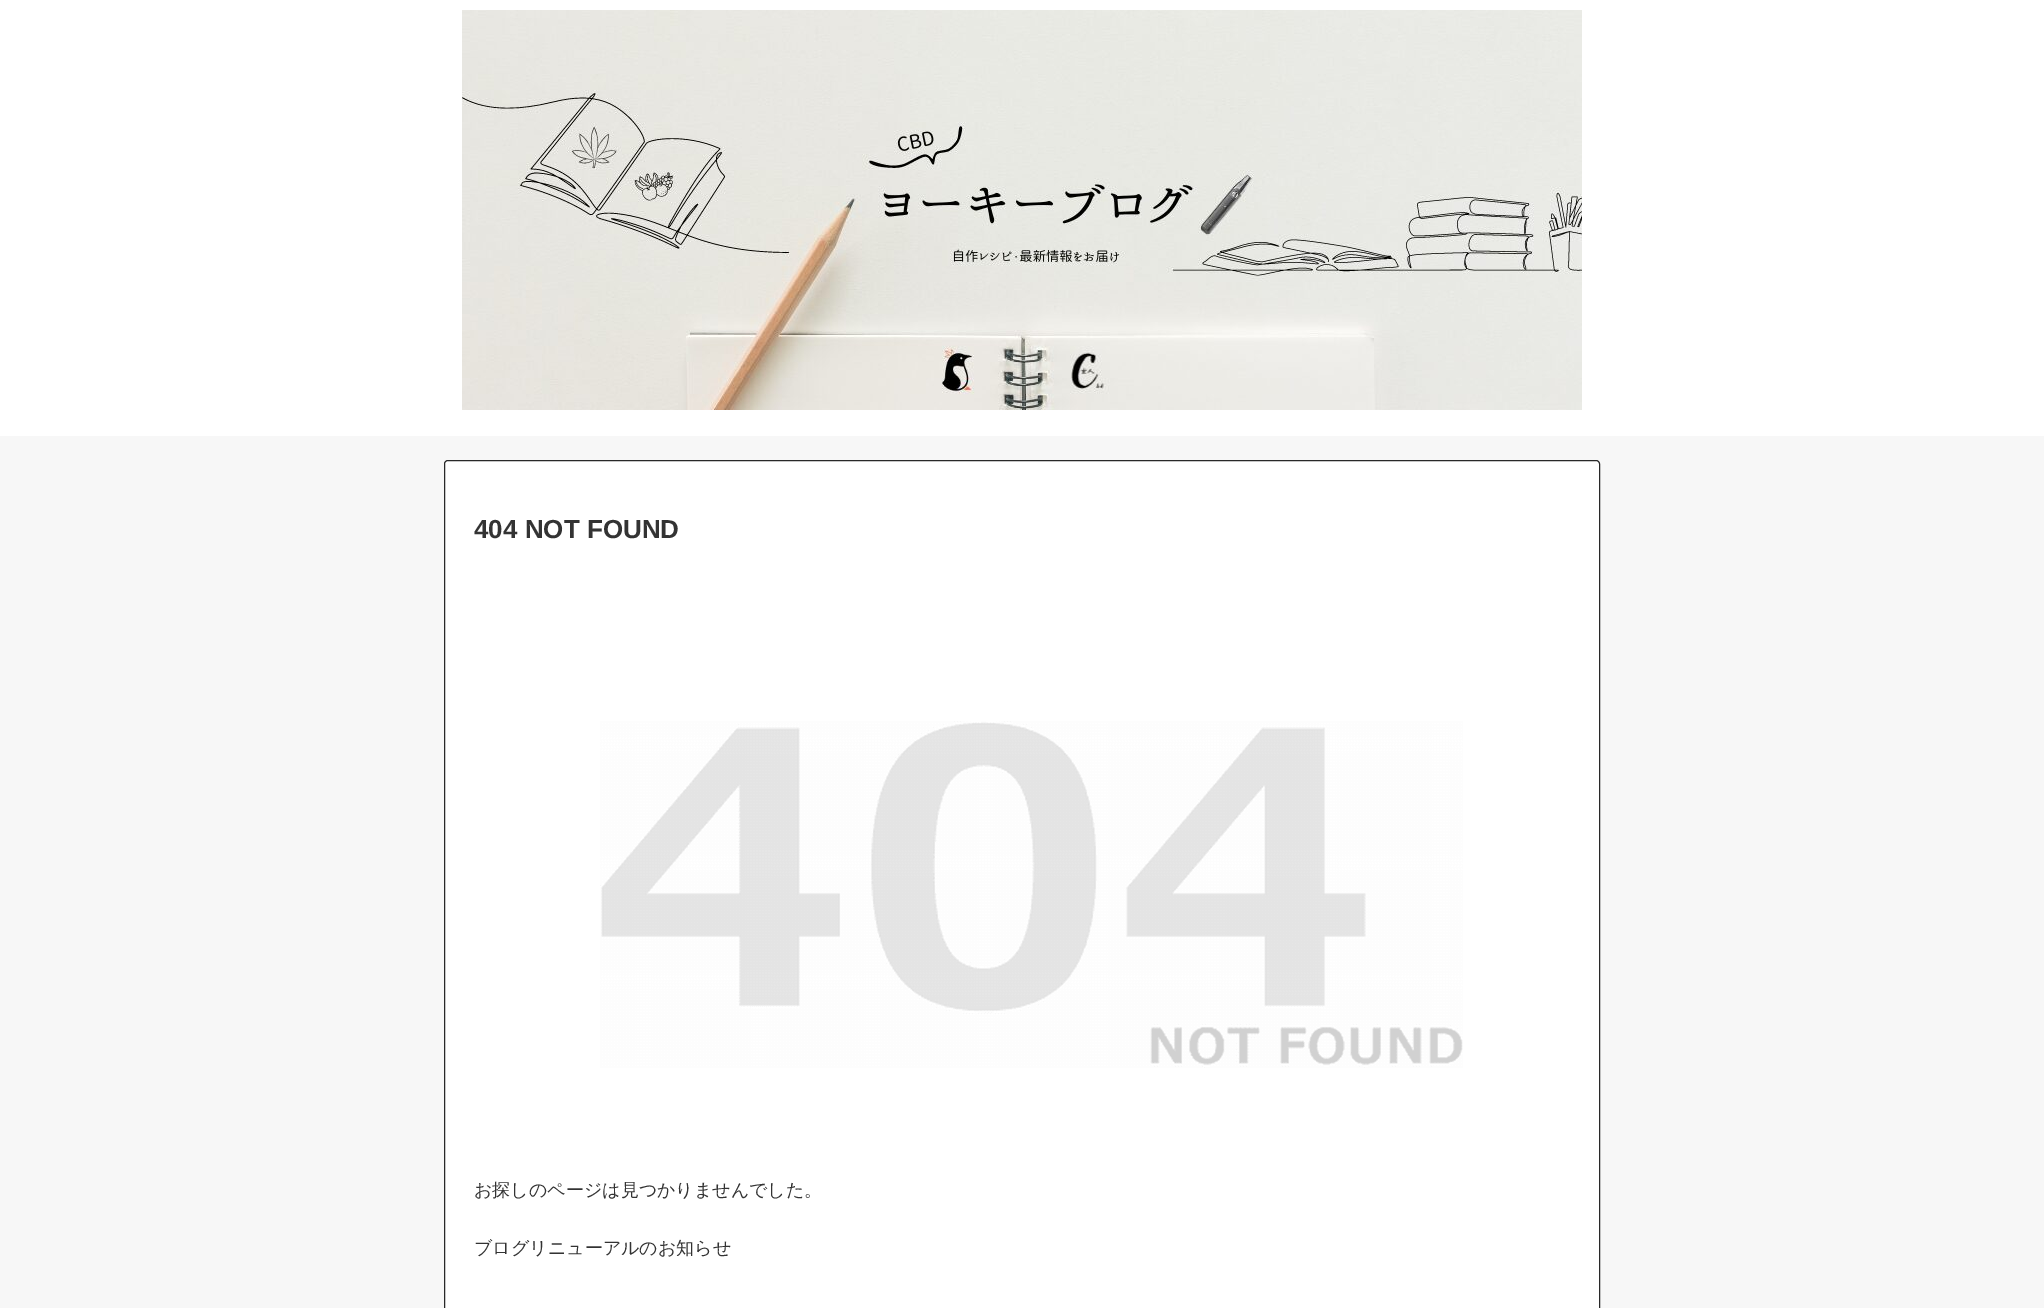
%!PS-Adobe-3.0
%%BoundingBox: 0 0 2044 1308
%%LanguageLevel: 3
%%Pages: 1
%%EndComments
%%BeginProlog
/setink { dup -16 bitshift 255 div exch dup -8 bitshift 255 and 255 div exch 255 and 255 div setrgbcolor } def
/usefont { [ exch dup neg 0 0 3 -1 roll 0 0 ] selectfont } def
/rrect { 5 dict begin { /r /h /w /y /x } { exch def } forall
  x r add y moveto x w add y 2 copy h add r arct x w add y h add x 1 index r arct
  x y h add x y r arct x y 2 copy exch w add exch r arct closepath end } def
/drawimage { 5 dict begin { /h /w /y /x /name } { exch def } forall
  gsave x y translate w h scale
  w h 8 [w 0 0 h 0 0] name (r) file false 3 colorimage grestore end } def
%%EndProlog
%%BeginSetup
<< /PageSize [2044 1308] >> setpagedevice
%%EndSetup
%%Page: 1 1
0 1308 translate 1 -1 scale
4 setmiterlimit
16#F7F7F7 setink
0 0 2044 1308 rectfill
16#FFFFFF setink
0 0 2044 436 rectfill
(img1.raw) 462 10 1120 400 drawimage
444.5 460.5 1155 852 3.5 rrect gsave fill grestore
16#282828 setink
stroke
/LiberationSans-Bold 26 usefont
16#333333 setink
474 538 moveto (404 NOT FOUND) show
(img2.raw) 600 721 863 347 drawimage
/WenQuanYiZenHei-Medium 18 usefont
474 1196 moveto (お探しのページは見つかりませんでした。) show
474 1254 moveto (ブログリニューアルのお知らせ) show
showpage
%%EOF
